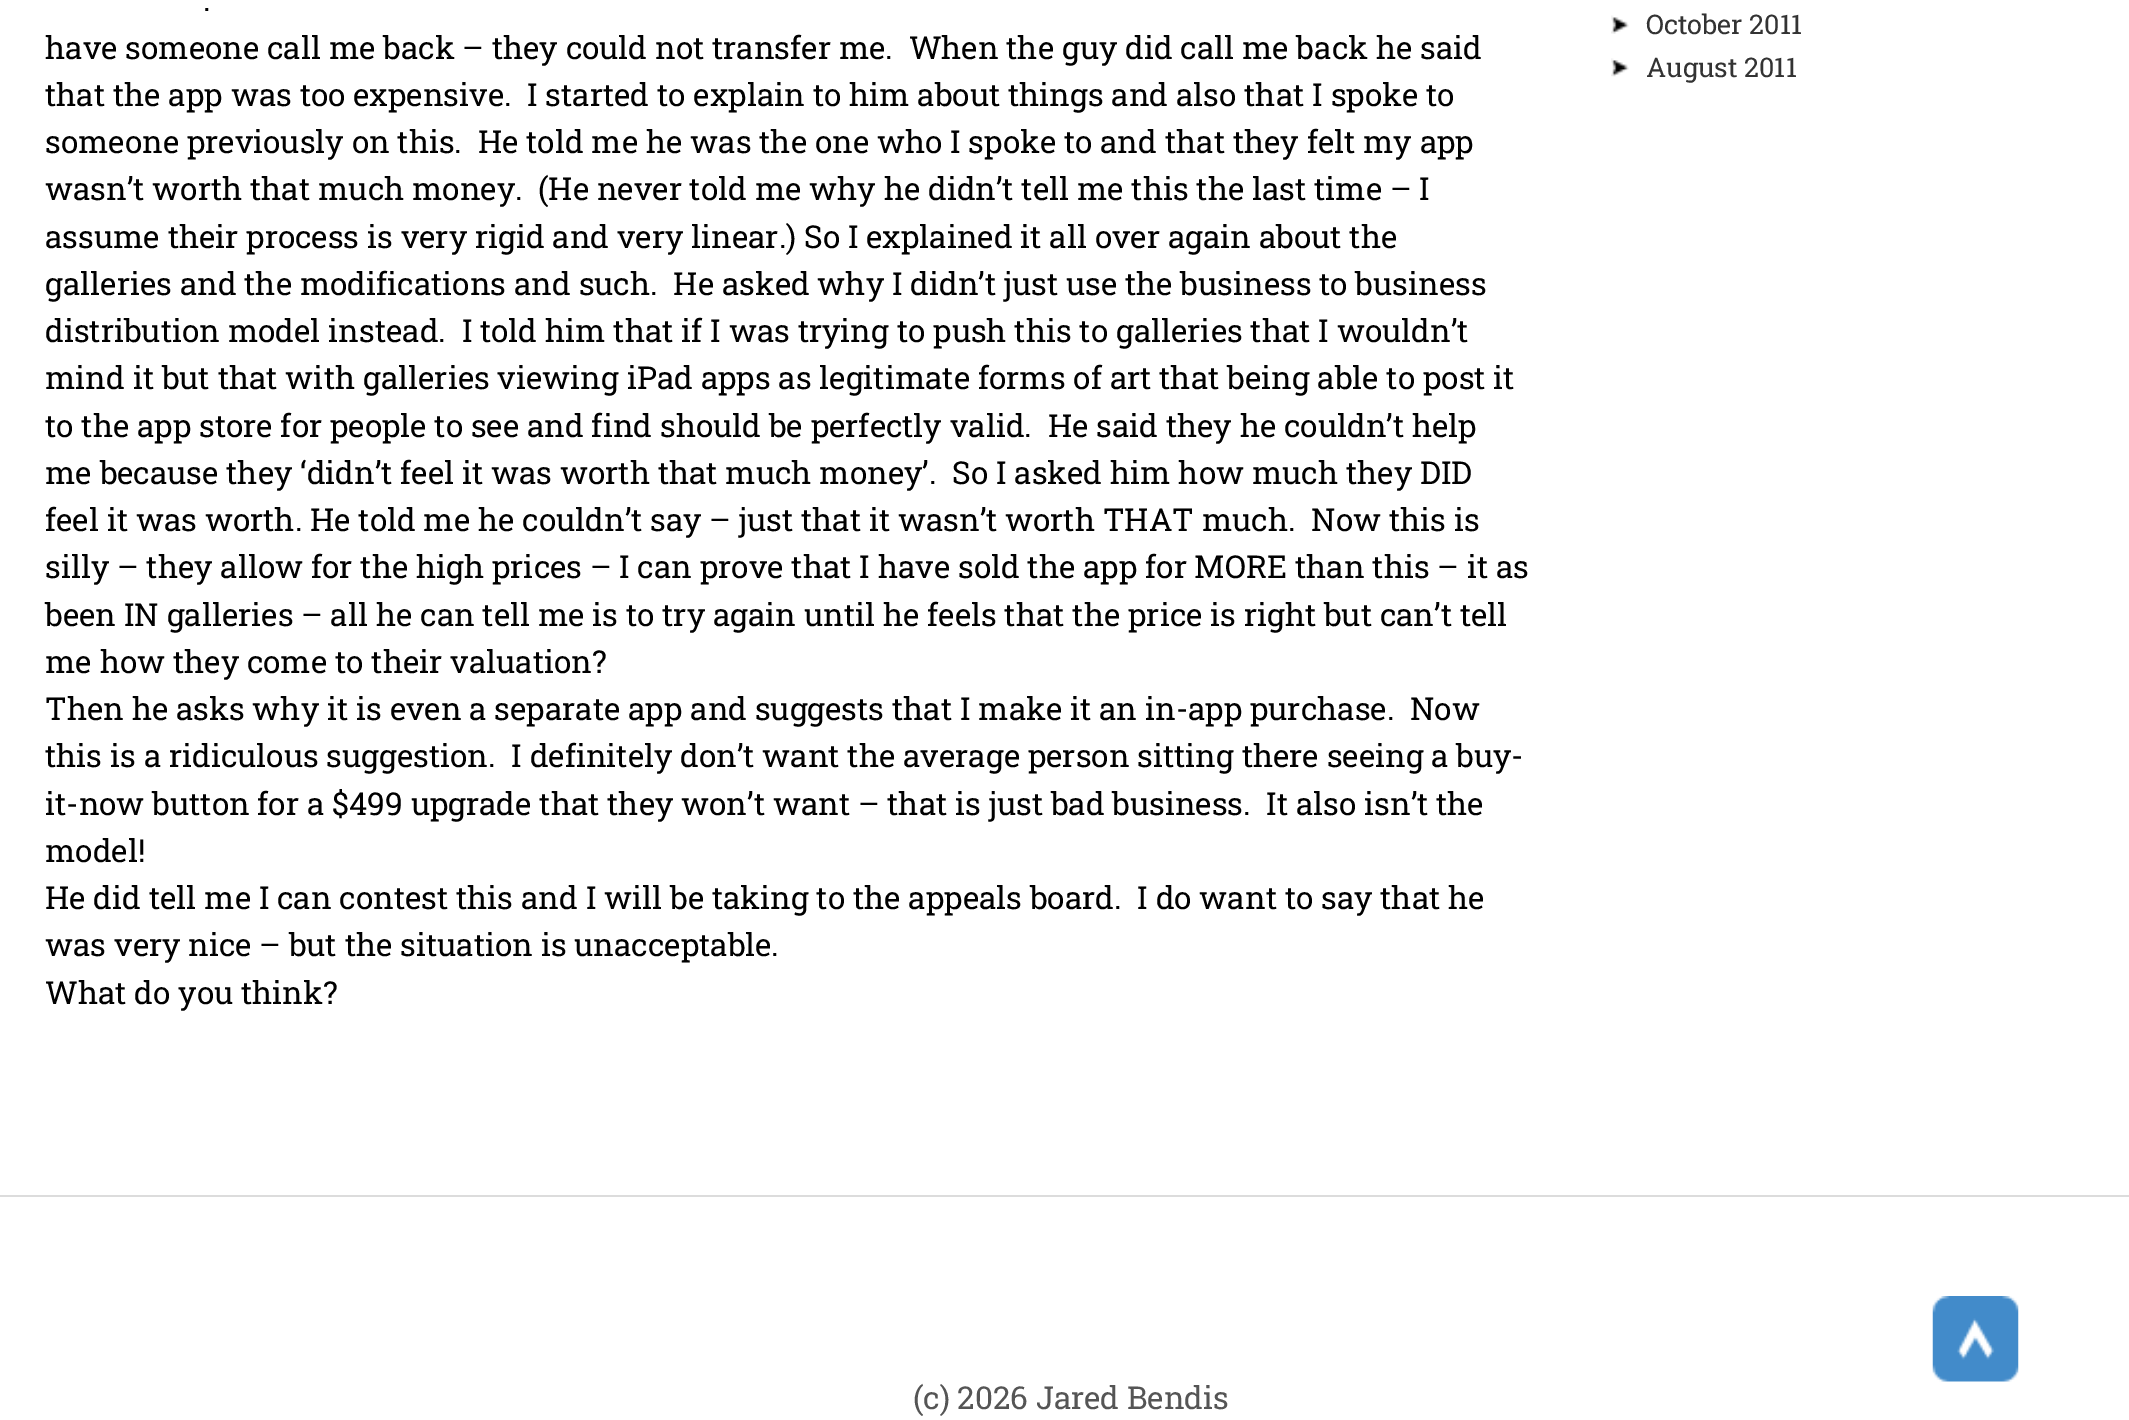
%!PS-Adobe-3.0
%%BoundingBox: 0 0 2129 1420
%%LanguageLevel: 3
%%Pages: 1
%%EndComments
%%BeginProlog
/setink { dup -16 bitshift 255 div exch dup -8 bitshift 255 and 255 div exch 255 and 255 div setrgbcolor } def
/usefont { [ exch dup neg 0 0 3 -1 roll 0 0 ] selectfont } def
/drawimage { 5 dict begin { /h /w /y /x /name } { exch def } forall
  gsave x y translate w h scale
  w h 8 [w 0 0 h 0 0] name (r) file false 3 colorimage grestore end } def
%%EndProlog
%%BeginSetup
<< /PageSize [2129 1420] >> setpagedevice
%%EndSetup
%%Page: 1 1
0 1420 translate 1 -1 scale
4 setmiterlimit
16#FFFFFF setink
0 0 2129 1420 rectfill
/RobotoSlab-Regular 31.5 usefont
16#000000 setink
[
    [(.) 203 11]
    [(have someone call me back – they could not transfer me.  When the guy did call me back he said) 45 59]
    [(that the app was too expensive.  I started to explain to him about things and also that I spoke to) 45 106]
    [(someone previously on this.  He told me he was the one who I spoke to and that they felt my app) 45 153]
    [(wasn’t worth that much money.  \(He never told me why he didn’t tell me this the last time – I) 45 200]
    [(assume their process is very rigid and very linear.\) So I explained it all over again about the) 45 248]
    [(galleries and the modifications and such.  He asked why I didn’t just use the business to business) 45 295]
    [(distribution model instead.  I told him that if I was trying to push this to galleries that I wouldn’t) 45 342]
    [(mind it but that with galleries viewing iPad apps as legitimate forms of art that being able to post it) 45 389]
    [(to the app store for people to see and find should be perfectly valid.  He said they he couldn’t help) 45 437]
    [(me because they ‘didn’t feel it was worth that much money’.  So I asked him how much they DID) 45 484]
    [(feel it was worth. He told me he couldn’t say – just that it wasn’t worth THAT much.  Now this is) 45 531]
    [(silly – they allow for the high prices – I can prove that I have sold the app for MORE than this – it as) 45 578]
    [(been IN galleries – all he can tell me is to try again until he feels that the price is right but can’t tell) 45 626]
    [(me how they come to their valuation?) 45 673]
    [(Then he asks why it is even a separate app and suggests that I make it an in-app purchase.  Now) 45 720]
    [(this is a ridiculous suggestion.  I definitely don’t want the average person sitting there seeing a buy-) 45 767]
    [(it-now button for a $499 upgrade that they won’t want – that is just bad business.  It also isn’t the) 45 815]
    [(model!) 45 862]
    [(He did tell me I can contest this and I will be taking to the appeals board.  I do want to say that he) 45 909]
    [(was very nice – but the situation is unacceptable.) 45 956]
    [(What do you think?) 45 1004]
] { aload pop moveto show } forall
(img1.raw) 1611 15 18 19 drawimage
/RobotoSlab-Regular 27 usefont
16#333333 setink
1646 34 moveto (October 2011) show
(img2.raw) 1611 58 18 19 drawimage
1646 77 moveto (August 2011) show
16#DCDCDC setink
0 1195 2129 2 rectfill
/RobotoSlab-Regular 31.5 usefont
16#555555 setink
913 1409 moveto (\(c\) 2026 Jared Bendis) show
(img3.raw) 1932 1296 87 86 drawimage
showpage
%%EOF
